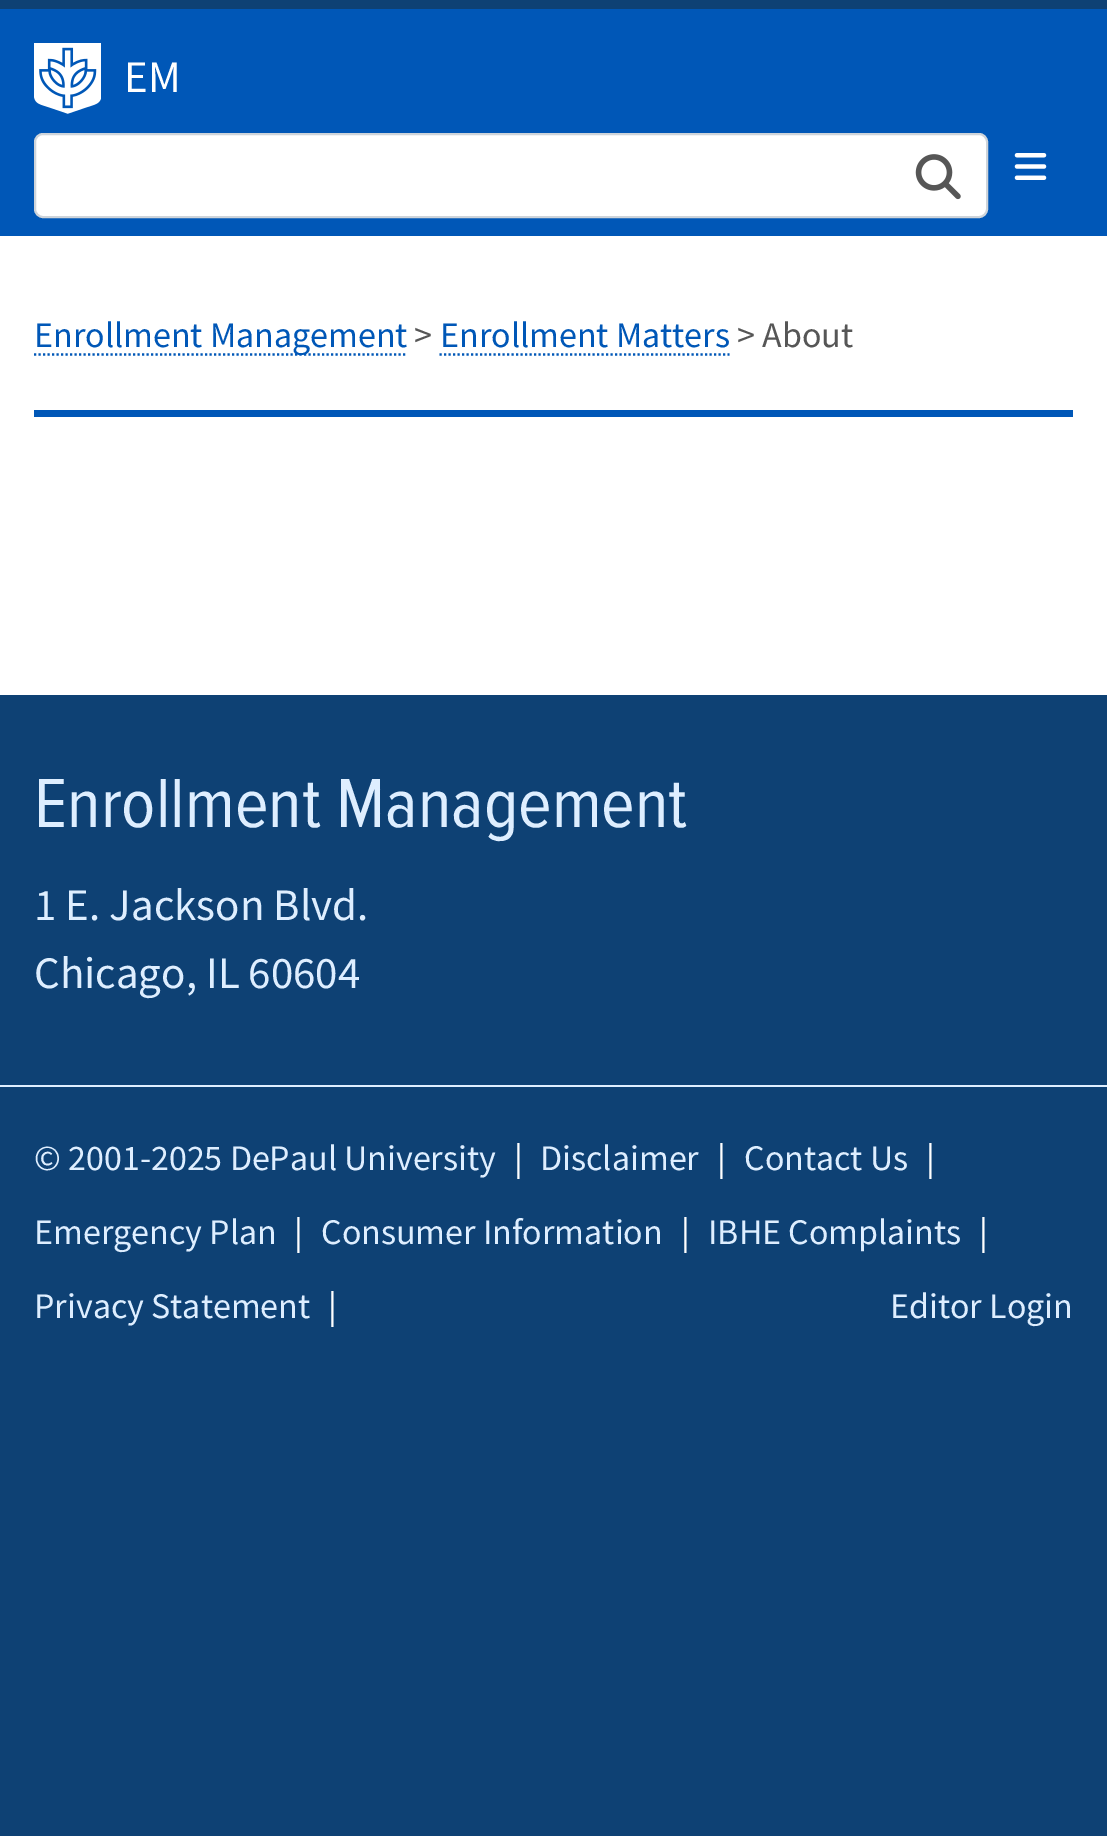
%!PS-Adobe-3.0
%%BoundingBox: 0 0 1107 1836
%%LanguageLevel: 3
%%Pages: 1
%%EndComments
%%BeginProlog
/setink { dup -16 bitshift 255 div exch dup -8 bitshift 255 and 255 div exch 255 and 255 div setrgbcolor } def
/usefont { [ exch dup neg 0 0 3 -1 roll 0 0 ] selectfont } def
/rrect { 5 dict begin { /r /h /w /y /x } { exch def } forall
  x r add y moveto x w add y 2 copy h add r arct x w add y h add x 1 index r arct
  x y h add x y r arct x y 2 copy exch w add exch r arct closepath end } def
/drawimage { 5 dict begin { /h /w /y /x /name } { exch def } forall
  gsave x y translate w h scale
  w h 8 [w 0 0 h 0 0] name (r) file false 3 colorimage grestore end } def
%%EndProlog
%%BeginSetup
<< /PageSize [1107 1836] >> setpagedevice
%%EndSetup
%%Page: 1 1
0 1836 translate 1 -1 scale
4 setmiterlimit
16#0E4174 setink
0 0 1107 1836 rectfill
16#FFFFFF setink
0 236 1107 459 rectfill
16#0057B7 setink
0 9 1107 227 rectfill
(img1.raw) 34 43 67 71 drawimage
/SourceSansPro-Regular 45 usefont
16#FFFFFF setink
124 92 moveto (EM) show
35 134 952 83 8 rrect gsave fill grestore
16#CED4DA setink
2 setlinewidth
stroke
(img2.raw) 915 154 46 46 drawimage
(img3.raw) 1014 153 33 27 drawimage
16#0057B7 setink
2.2 setlinewidth
[2.25 2.25] 0 setdash
34 354.5 moveto 407.5 354.5 lineto stroke
/SourceSansPro-Regular 36 usefont
34 347 moveto (Enrollment Management) show
16#565656 setink
414 347 moveto (>) show
16#0057B7 setink
440 347 moveto (Enrollment Matters) show
439.5 354.5 moveto 729.5 354.5 lineto stroke
16#565656 setink
737 347 moveto (> About) show
16#0057B7 setink
34 410 1039 7 rectfill
/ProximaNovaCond-Regular 72 usefont
16#DEEEFF setink
34 827 moveto (Enrollment Management) show
/SourceSansPro-Regular 45 usefont
34 920 moveto (1 E. Jackson Blvd.) show
34 988 moveto (Chicago, IL 60604) show
0 1085 1107 2 rectfill
/SourceSansPro-Regular 36 usefont
34 1170 moveto (© 2001-2025 DePaul University) show
16#FFFFFF setink
514 1170 moveto (|) show
16#DEEEFF setink
540 1170 moveto (Disclaimer) show
16#FFFFFF setink
717 1170 moveto (|) show
16#DEEEFF setink
744 1170 moveto (Contact Us) show
16#FFFFFF setink
926 1170 moveto (|) show
16#DEEEFF setink
34 1244 moveto (Emergency Plan) show
16#FFFFFF setink
294 1244 moveto (|) show
16#DEEEFF setink
321 1244 moveto (Consumer Information) show
16#FFFFFF setink
681 1244 moveto (|) show
16#DEEEFF setink
708 1244 moveto (IBHE Complaints) show
16#FFFFFF setink
979 1244 moveto (|) show
16#DEEEFF setink
34 1318 moveto (Privacy Statement) show
16#FFFFFF setink
328 1318 moveto (|) show
16#DEEEFF setink
890 1318 moveto (Editor Login) show
showpage
%%EOF
